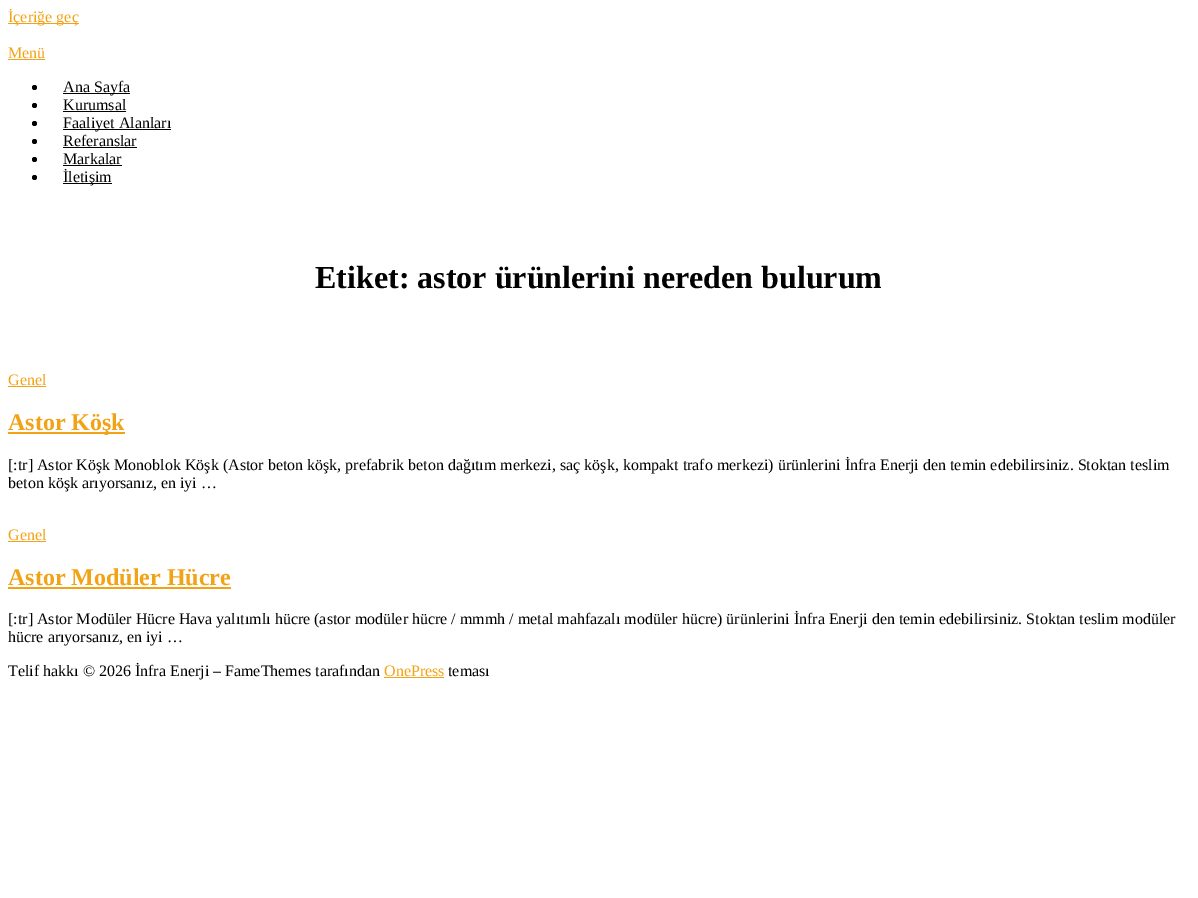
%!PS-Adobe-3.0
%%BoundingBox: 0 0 1198 898
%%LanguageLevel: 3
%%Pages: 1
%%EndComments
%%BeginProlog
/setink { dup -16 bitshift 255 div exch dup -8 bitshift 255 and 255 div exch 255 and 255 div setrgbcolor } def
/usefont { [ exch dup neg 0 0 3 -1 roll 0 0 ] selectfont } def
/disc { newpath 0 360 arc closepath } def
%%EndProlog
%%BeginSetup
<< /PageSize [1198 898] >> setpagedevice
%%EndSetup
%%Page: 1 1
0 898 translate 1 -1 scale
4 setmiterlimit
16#FFFFFF setink
0 0 1198 898 rectfill
16#F2A215 setink
8 23 71 1 rectfill
/LiberationSerif-Regular 16 usefont
8 22 moveto (İçeriğe geç) show
8 58 moveto (Menü) show
8 59 37 1 rectfill
16#000000 setink
34.5 87.5 2.5 disc fill
63 93 67 1 rectfill
63 92 moveto (Ana Sayfa) show
34.5 105.5 2.5 disc fill
63 110 moveto (Kurumsal) show
63 111 63 1 rectfill
34.5 123.5 2.5 disc fill
63 129 108 1 rectfill
63 128 moveto (Faaliyet Alanları) show
34.5 141.5 2.5 disc fill
63 146 moveto (Referanslar) show
63 147 74 1 rectfill
34.5 159.5 2.5 disc fill
63 164 moveto (Markalar) show
63 165 59 1 rectfill
34.5 177.5 2.5 disc fill
63 183 49 1 rectfill
63 182 moveto (İletişim) show
/LiberationSerif-Bold 32 usefont
315 288 moveto (Etiket: astor ürünlerini nereden bulurum) show
/LiberationSerif-Regular 16 usefont
16#F2A215 setink
8 385 moveto (Genel) show
8 386 38 1 rectfill
8 432 117 2 rectfill
/LiberationSerif-Bold 24 usefont
8 430 moveto (Astor Köşk) show
/LiberationSerif-Regular 16 usefont
16#000000 setink
8 470 moveto ([:tr] Astor Köşk Monoblok Köşk \(Astor beton köşk, prefabrik beton dağıtım merkezi, saç köşk, kompakt trafo merkezi\) ürünlerini İnfra Enerji den temin edebilirsiniz. Stoktan teslim) show
8 488 moveto (beton köşk arıyorsanız, en iyi …) show
16#F2A215 setink
8 540 moveto (Genel) show
8 541 38 1 rectfill
/LiberationSerif-Bold 24 usefont
8 585 moveto (Astor Modüler Hücre) show
8 587 223 2 rectfill
/LiberationSerif-Regular 16 usefont
16#000000 setink
[
    [([:tr] Astor Modüler Hücre Hava yalıtımlı hücre \(astor modüler hücre / mmmh / metal mahfazalı modüler hücre\) ürünlerini İnfra Enerji den temin edebilirsiniz. Stoktan teslim modüler) 8 624]
    [(hücre arıyorsanız, en iyi …) 8 642]
    [(Telif hakkı © 2026 İnfra Enerji – FameThemes tarafından) 8 676]
] { aload pop moveto show } forall
16#F2A215 setink
384 676 moveto (OnePress) show
384 677 60 1 rectfill
16#000000 setink
448 676 moveto (teması) show
showpage
%%EOF
